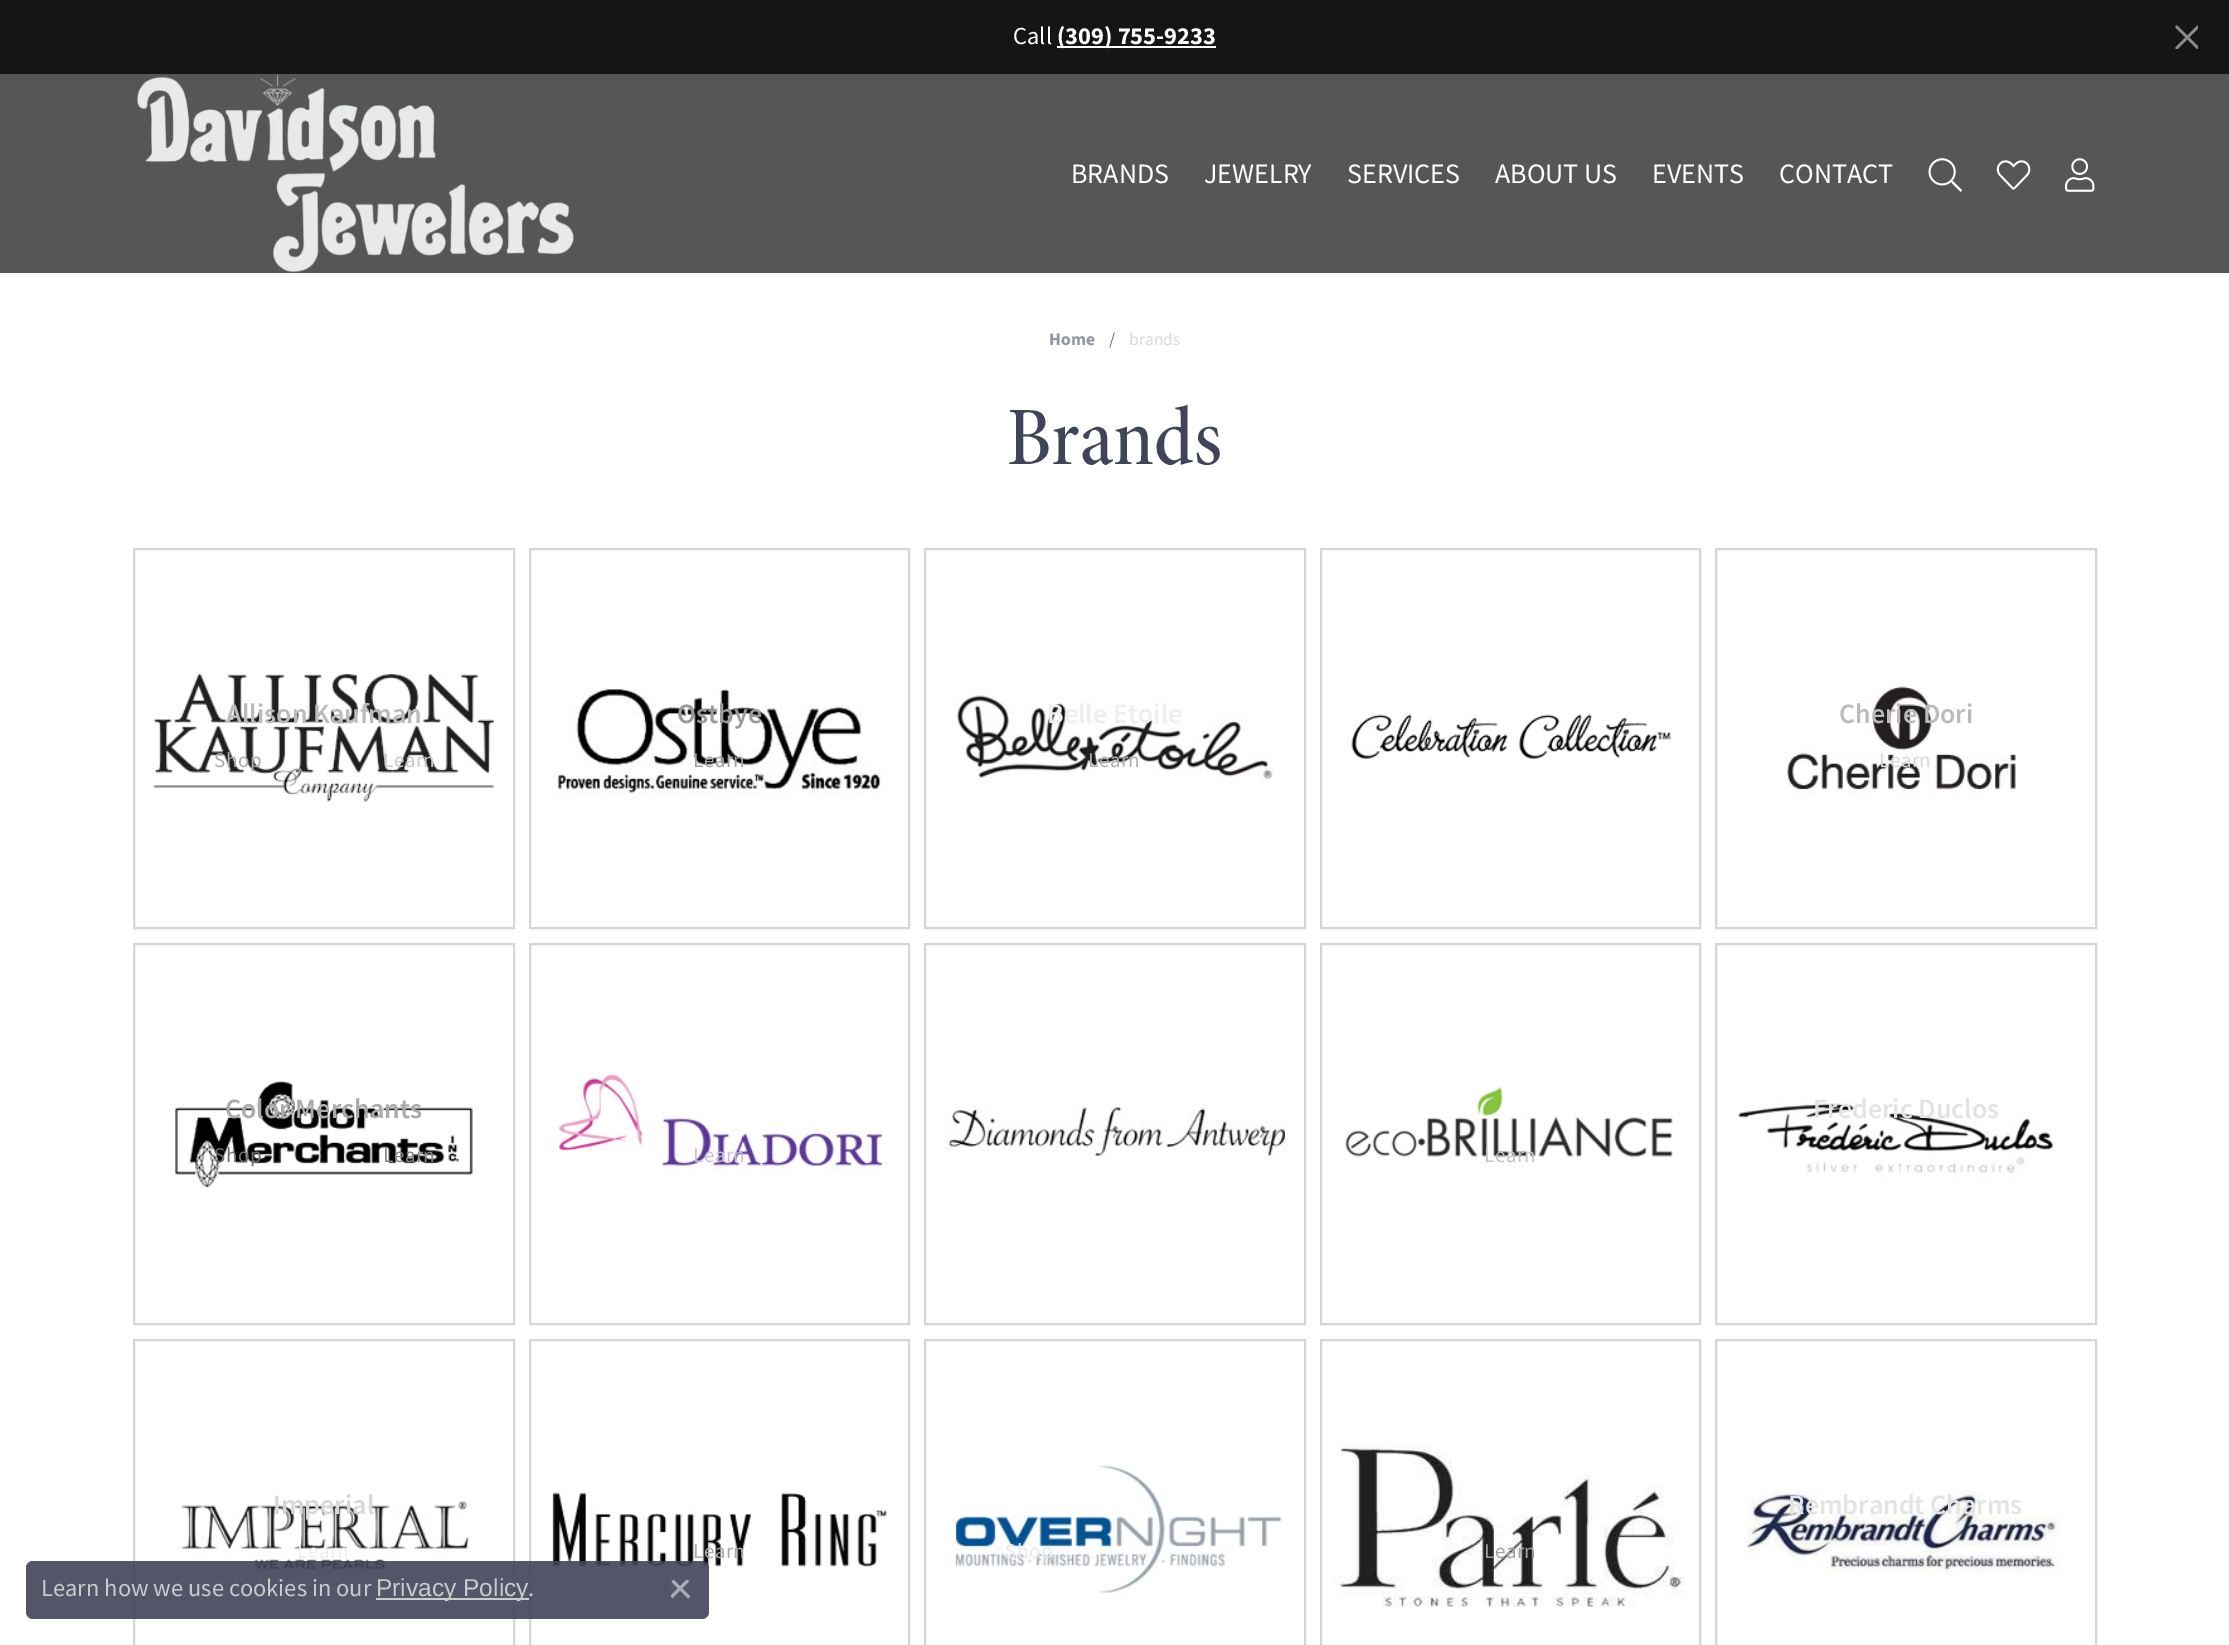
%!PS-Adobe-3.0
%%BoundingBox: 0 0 2229 1645
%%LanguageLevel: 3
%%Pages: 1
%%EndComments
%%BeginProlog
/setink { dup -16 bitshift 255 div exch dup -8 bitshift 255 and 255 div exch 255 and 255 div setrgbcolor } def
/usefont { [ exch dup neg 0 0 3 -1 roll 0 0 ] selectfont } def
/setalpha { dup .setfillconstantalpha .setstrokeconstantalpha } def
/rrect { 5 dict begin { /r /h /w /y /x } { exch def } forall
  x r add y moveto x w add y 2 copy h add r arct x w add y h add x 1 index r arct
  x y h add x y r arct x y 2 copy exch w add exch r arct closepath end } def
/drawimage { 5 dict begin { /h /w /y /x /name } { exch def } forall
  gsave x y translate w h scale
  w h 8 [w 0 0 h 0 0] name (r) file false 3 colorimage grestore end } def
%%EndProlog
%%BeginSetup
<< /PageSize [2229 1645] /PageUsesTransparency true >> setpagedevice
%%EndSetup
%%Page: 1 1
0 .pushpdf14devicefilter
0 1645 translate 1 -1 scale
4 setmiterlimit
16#565656 setink
0 0 2229 1645 rectfill
16#151515 setink
0 0 2229 74 rectfill
/SourceSansPro-Regular 24.5 usefont
16#FFFFFF setink
1013 44 moveto (Call) show
1057 46 159 2 rectfill
/SourceSansPro-Bold 24.5 usefont
1057 44 moveto (\(309\) 755-9233) show
(img1.raw) 2175 25 23 24 drawimage
(img2.raw) 137 75 437 198 drawimage
/SourceSansPro-Regular 28 usefont
[
    [(BRANDS) 1071 183]
    [(JEWELRY) 1204 183]
    [(SERVICES) 1347 183]
    [(ABOUT US) 1495 183]
    [(EVENTS) 1652 183]
    [(CONTACT) 1779 183]
] { aload pop moveto show } forall
(img3.raw) 1928 158 35 34 drawimage
(img4.raw) 1996 160 35 30 drawimage
(img5.raw) 2065 158 30 34 drawimage
0 273 2229 1372 rectfill
/SourceSansPro-Bold 17.5 usefont
16#93969F setink
1049 345 moveto (Home) show
/SourceSansPro-Regular 17.5 usefont
16#6F6F6F setink
1109 345 moveto (/) show
16#D7D8DB setink
1129 345 moveto (brands) show
/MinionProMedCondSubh-Medium 84 usefont
16#404458 setink
1007 464 moveto (Brands) show
(img6.raw) 153 674 341 128 drawimage
16#D5D5D5 setink
2 setlinewidth
134 549 380 379 rectstroke
/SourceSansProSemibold-SemiBold 28 usefont
16#BCBBBB setink
226 723 moveto (Allison Kaufman) show
/SourceSansPro-Regular 21 usefont
16#ABAAAA setink
214 767 moveto 0.5 0 (Shop) ashow
16#CBCACB setink
383 767 moveto 0.5 0 (Learn) ashow
(img7.raw) 555 687 328 108 drawimage
16#D5D5D5 setink
530 549 379 379 rectstroke
/SourceSansProSemibold-SemiBold 28 usefont
16#9A9A9A setink
677 723 moveto (Ostbye) show
/SourceSansPro-Regular 21 usefont
16#A1A1A1 setink
693 767 moveto 0.5 0 (Learn) ashow
(img8.raw) 957 695 316 90 drawimage
16#D5D5D5 setink
925 549 380 379 rectstroke
/SourceSansProSemibold-SemiBold 28 usefont
16#EEEEEE setink
1047 723 moveto (Belle Etoile) show
/SourceSansPro-Regular 21 usefont
16#B2B0B1 setink
1088 767 moveto 0.5 0 (Learn) ashow
(img9.raw) 1351 714 320 45 drawimage
16#D5D5D5 setink
1321 549 379 379 rectstroke
(img10.raw) 1787 686 231 109 drawimage
1716 549 380 379 rectstroke
/SourceSansProSemibold-SemiBold 28 usefont
16#BCBBBB setink
1839 723 moveto (Cherie Dori) show
/SourceSansPro-Regular 21 usefont
16#D7D8DB setink
1879 767 moveto 0.5 0 (Learn) ashow
(img11.raw) 175 1081 298 107 drawimage
16#D5D5D5 setink
134 944 380 380 rectstroke
/SourceSansProSemibold-SemiBold 28 usefont
16#ABAAAA setink
225 1118 moveto (Color Merchants) show
/SourceSansPro-Regular 21 usefont
16#6F6F6F setink
214 1162 moveto 0.5 0 (Shop) ashow
16#868686 setink
383 1162 moveto 0.5 0 (Learn) ashow
(img12.raw) 946 1103 342 56 drawimage
16#D5D5D5 setink
925 944 380 380 rectstroke
(img13.raw) 1738 1100 319 79 drawimage
1716 944 380 380 rectstroke
/SourceSansProSemibold-SemiBold 28 usefont
16#E3E3E3 setink
1813 1118 moveto (Frederic Duclos) show
(img14.raw) 551 1070 332 101 drawimage
16#D5D5D5 setink
530 944 379 380 rectstroke
/SourceSansPro-Regular 21 usefont
16#C9BEDB setink
693 1162 moveto 0.5 0 (Learn) ashow
(img15.raw) 1345 1087 328 70 drawimage
16#D5D5D5 setink
1321 944 379 380 rectstroke
16#C5C4C5 setink
1484 1162 moveto 0.5 0 (Learn) ashow
(img16.raw) 181 1500 288 70 drawimage
16#D5D5D5 setink
134 1340 380 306 rectstroke
/SourceSansProSemibold-SemiBold 28 usefont
16#D7D8DB setink
273 1514 moveto (Imperial) show
/SourceSansPro-Regular 21 usefont
16#EEEEEE setink
297 1558 moveto 0.5 0 (Learn) ashow
(img17.raw) 1745 1488 315 88 drawimage
16#D5D5D5 setink
1716 1340 380 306 rectstroke
/SourceSansProSemibold-SemiBold 28 usefont
16#E3E3E3 setink
1788 1514 moveto (Rembrandt Charms) show
(img18.raw) 552 1492 335 75 drawimage
16#D5D5D5 setink
530 1340 379 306 rectstroke
/SourceSansPro-Regular 21 usefont
16#ABAAAA setink
693 1558 moveto 0.5 0 (Learn) ashow
(img19.raw) 955 1465 333 131 drawimage
16#D5D5D5 setink
925 1340 380 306 rectstroke
16#E6EBEE setink
1005 1558 moveto 0.5 0 (Shop) ashow
(img20.raw) 1333 1445 352 162 drawimage
16#D5D5D5 setink
1321 1340 379 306 rectstroke
16#A1A1A1 setink
1484 1558 moveto 0.5 0 (Learn) ashow
0.9 setalpha
16#404459 setink
26 1561 683 58 7 rrect fill
/SourceSansPro-Regular 24.5 usefont
1 setalpha
16#CBCACB setink
41 1596 moveto (Learn how we use cookies in our) show
16#CCCCCC setink
376 1598 153 2 rectfill
/LiberationSans-Regular 24.5 usefont
16#CBCACB setink
376 1596 moveto (Privacy Policy) show
/SourceSansPro-Regular 24.5 usefont
528 1596 moveto (.) show
(img21.raw) 670 1579 21 20 drawimage
.poppdf14devicefilter showpage
%%EOF
